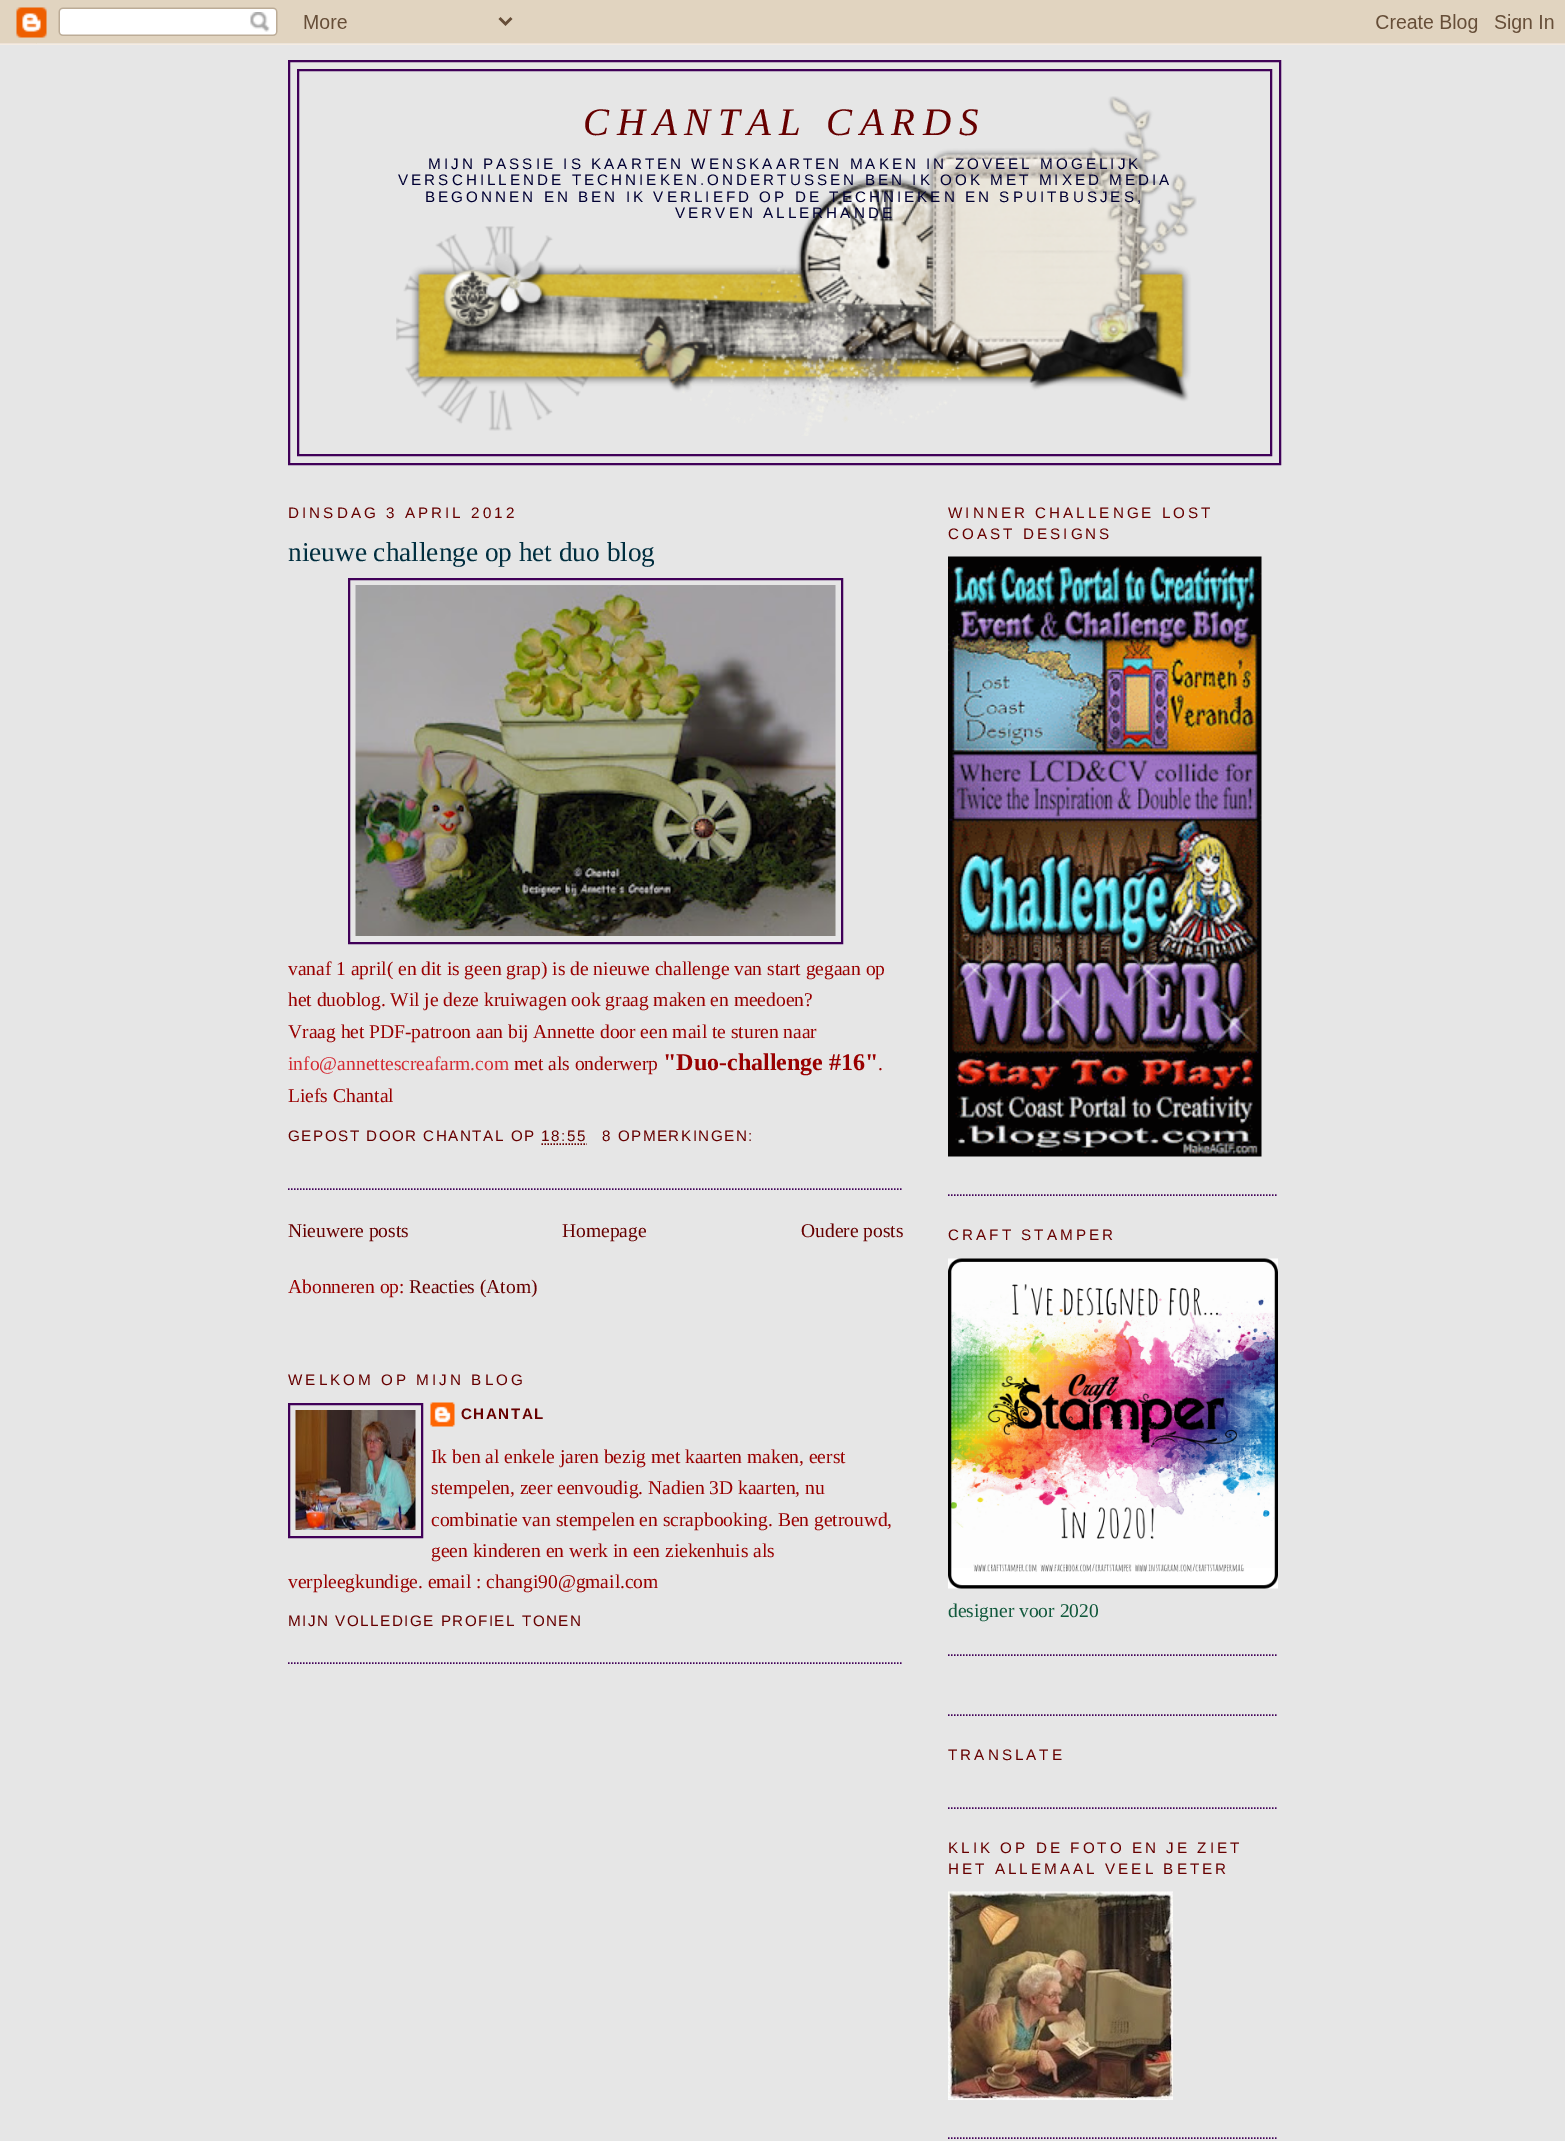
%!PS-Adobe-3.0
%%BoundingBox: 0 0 1565 2141
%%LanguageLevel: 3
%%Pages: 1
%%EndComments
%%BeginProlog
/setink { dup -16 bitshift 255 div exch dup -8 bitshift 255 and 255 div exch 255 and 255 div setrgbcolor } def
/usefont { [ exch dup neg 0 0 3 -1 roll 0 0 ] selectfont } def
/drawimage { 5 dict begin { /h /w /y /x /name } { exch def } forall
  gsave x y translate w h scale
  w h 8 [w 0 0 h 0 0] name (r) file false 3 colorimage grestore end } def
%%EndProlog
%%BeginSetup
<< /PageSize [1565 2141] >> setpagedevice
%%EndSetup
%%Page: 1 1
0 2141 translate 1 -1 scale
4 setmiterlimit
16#E6E6E6 setink
0 0 1565 2141 rectfill
(img1.raw) 0 0 1565 45 drawimage
16#400058 setink
2 setlinewidth
289 61 991 403 rectstroke
298 70 973 385 rectstroke
(img2.raw) 396 96 801 340 drawimage
/LiberationSerif-Italic 39 usefont
16#660000 setink
583 135 moveto 7.75 0 (CHANTAL CARDS) ashow
/LiberationSans-Regular 15.2 usefont
16#000033 setink
428 169 moveto 3.05 0 (MIJN PASSIE IS KAARTEN WENSKAARTEN MAKEN IN ZOVEEL MOGELIJK) ashow
398 185 moveto 3.05 0 (VERSCHILLENDE TECHNIEKEN.ONDERTUSSEN BEN IK OOK MET MIXED MEDIA) ashow
425 202 moveto 3.05 0 (BEGONNEN EN BEN IK VERLIEFD OP DE TECHNIEKEN EN SPUITBUSJES,) ashow
675 218 moveto 3.05 0 (VERVEN ALLERHANDE) ashow
16#660000 setink
288 518 moveto 3.05 0 (DINSDAG 3 APRIL 2012) ashow
16#400058 setink
1.5 setlinewidth
[1.5 1.5] 0 setdash
288 1189 moveto 903 1189 lineto stroke
/LiberationSerif-Regular 27.25 usefont
16#002E3F setink
288 561 moveto (nieuwe challenge op het duo blog) show
16#400058 setink
2 setlinewidth
[] 0 setdash
349 579 493 364 rectstroke
(img3.raw) 355 585 481 351 drawimage
/LiberationSerif-Regular 19.5 usefont
16#990000 setink
[
    [(vanaf 1 april\( en dit is geen grap\) is de nieuwe challenge van start gegaan op) 288 975]
    [(het duoblog. Wil je deze kruiwagen ook graag maken en meedoen?) 288 1006]
    [(Vraag het PDF-patroon aan bij Annette door een mail te sturen naar) 288 1038]
] { aload pop moveto show } forall
16#D52A33 setink
288 1070 moveto (info@annettescreafarm.com) show
16#990000 setink
514 1070 moveto (met als onderwerp) show
/LiberationSerif-Bold 24 usefont
663 1070 moveto ("Duo-challenge #16") show
/LiberationSerif-Regular 19.5 usefont
878 1070 moveto (.) show
288 1102 moveto (Liefs Chantal) show
/LiberationSans-Regular 15.2 usefont
16#660000 setink
288 1141 moveto 1.5 0 (GEPOST DOOR CHANTAL OP 18:55) ashow
602 1141 moveto 1.5 0 (8 OPMERKINGEN:) ashow
1.5 setlinewidth
[1.5 1.5] 0 setdash
541.5 1144 moveto 587 1144 lineto stroke
/LiberationSerif-Regular 19.5 usefont
[
    [(Nieuwere posts) 288 1237]
    [(Homepage) 562 1237]
    [(Oudere posts) 801 1237]
] { aload pop moveto show } forall
16#990000 setink
288 1293 moveto (Abonneren op:) show
16#660000 setink
409 1293 moveto (Reacties \(Atom\)) show
16#400058 setink
288 1663 moveto 903 1663 lineto stroke
/LiberationSans-Regular 15.2 usefont
16#660000 setink
288 1385 moveto 3.05 0 (WELKOM OP MIJN BLOG) ashow
16#400058 setink
2 setlinewidth
[] 0 setdash
289 1404 133 133 rectstroke
(img4.raw) 295 1410 121 120 drawimage
(img5.raw) 430 1402 25 25 drawimage
/LiberationSans-Bold 15.2 usefont
16#660000 setink
461 1419 moveto 1.5 0 (CHANTAL) ashow
/LiberationSerif-Regular 19.5 usefont
16#990000 setink
[
    [(Ik ben al enkele jaren bezig met kaarten maken, eerst) 431 1463]
    [(stempelen, zeer eenvoudig. Nadien 3D kaarten, nu) 431 1494]
    [(combinatie van stempelen en scrapbooking. Ben getrouwd,) 431 1526]
    [(geen kinderen en werk in een ziekenhuis als) 431 1557]
    [(verpleegkundige. email : changi90@gmail.com) 288 1588]
] { aload pop moveto show } forall
/LiberationSans-Regular 15.2 usefont
16#660000 setink
288 1626 moveto 1.5 0 (MIJN VOLLEDIGE PROFIEL TONEN) ashow
16#400058 setink
1.5 setlinewidth
[1.5 1.5] 0 setdash
948 1195 moveto 1278 1195 lineto stroke
16#660000 setink
948 518 moveto 3.05 0 (WINNER CHALLENGE LOST) ashow
948 539 moveto 3.05 0 (COAST DESIGNS) ashow
(img6.raw) 948 556 314 601 drawimage
16#400058 setink
948 1655 moveto 1278 1655 lineto stroke
16#660000 setink
948 1240 moveto 3.05 0 (CRAFT STAMPER) ashow
(img7.raw) 948 1258 330 331 drawimage
/LiberationSerif-Regular 19.5 usefont
16#11593C setink
948 1617 moveto (designer voor 2020) show
16#400058 setink
948 1715 moveto 1278 1715 lineto stroke
948 1808 moveto 1278 1808 lineto stroke
/LiberationSans-Regular 15.2 usefont
16#660000 setink
948 1760 moveto 3.05 0 (TRANSLATE) ashow
16#400058 setink
948 2138 moveto 1278 2138 lineto stroke
16#660000 setink
948 1853 moveto 3.05 0 (KLIK OP DE FOTO EN JE ZIET) ashow
948 1874 moveto 3.05 0 (HET ALLEMAAL VEEL BETER) ashow
(img8.raw) 948 1891 225 209 drawimage
showpage
%%EOF
